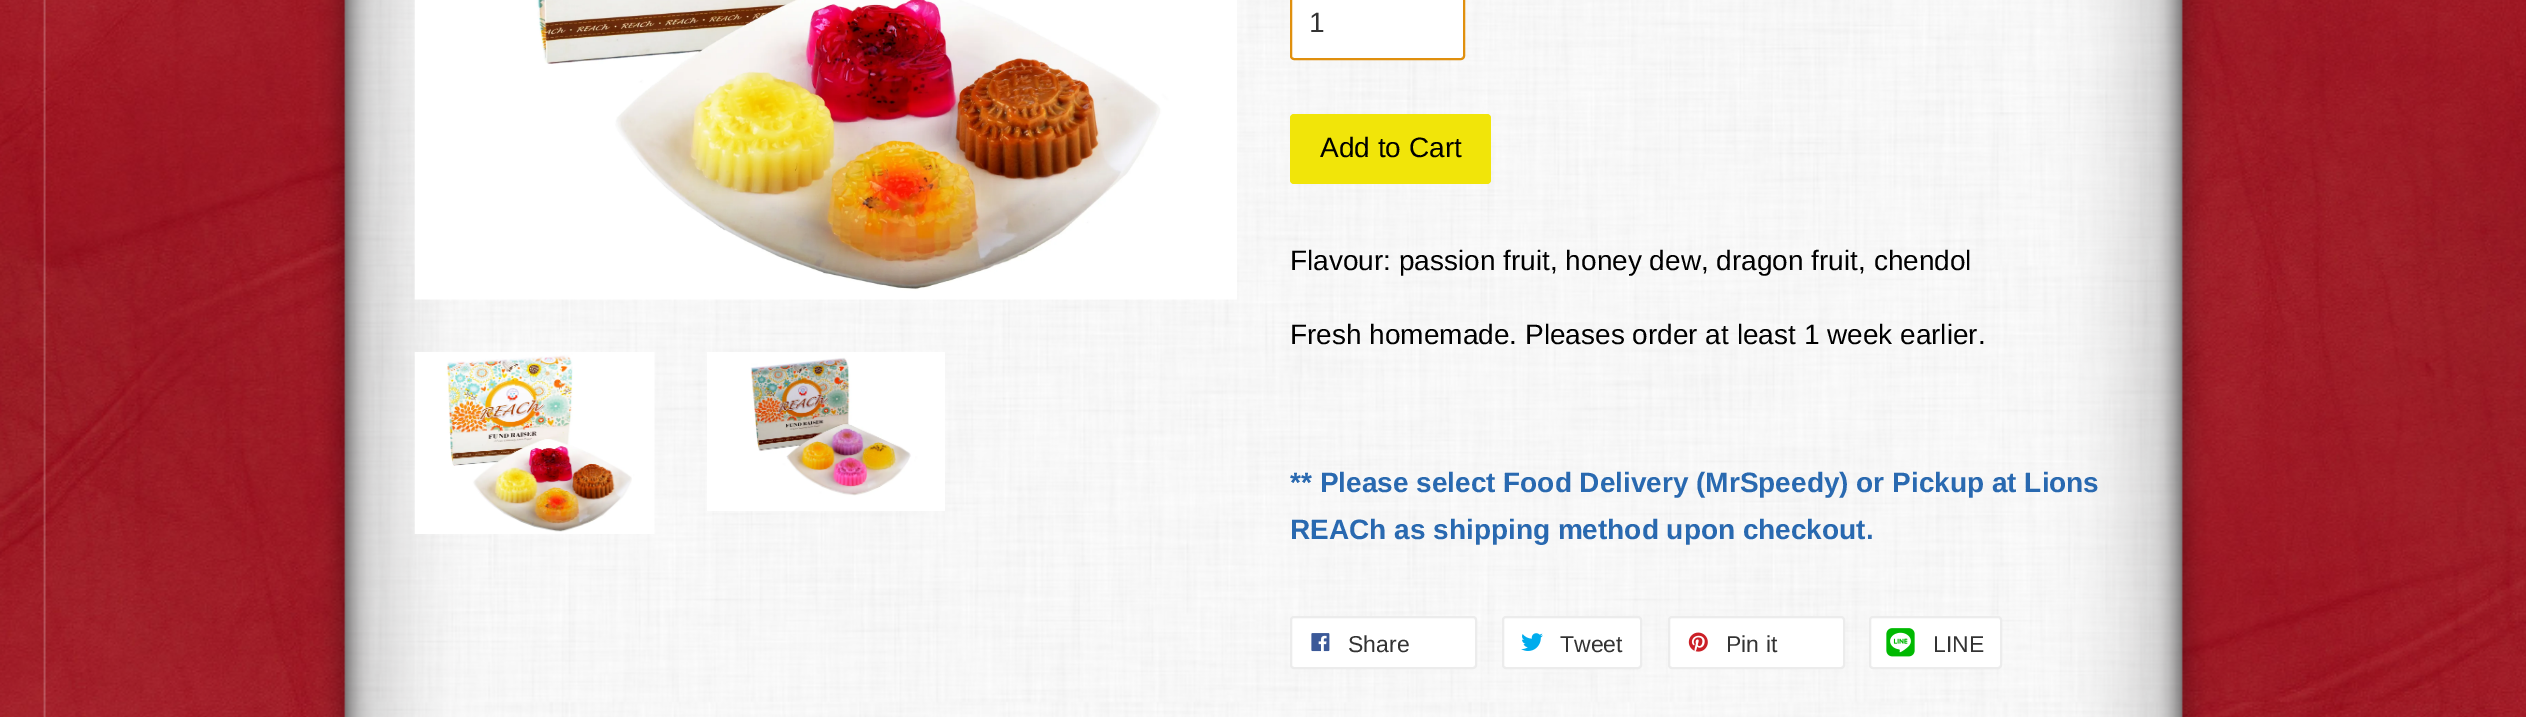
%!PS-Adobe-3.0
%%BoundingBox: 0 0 2526 717
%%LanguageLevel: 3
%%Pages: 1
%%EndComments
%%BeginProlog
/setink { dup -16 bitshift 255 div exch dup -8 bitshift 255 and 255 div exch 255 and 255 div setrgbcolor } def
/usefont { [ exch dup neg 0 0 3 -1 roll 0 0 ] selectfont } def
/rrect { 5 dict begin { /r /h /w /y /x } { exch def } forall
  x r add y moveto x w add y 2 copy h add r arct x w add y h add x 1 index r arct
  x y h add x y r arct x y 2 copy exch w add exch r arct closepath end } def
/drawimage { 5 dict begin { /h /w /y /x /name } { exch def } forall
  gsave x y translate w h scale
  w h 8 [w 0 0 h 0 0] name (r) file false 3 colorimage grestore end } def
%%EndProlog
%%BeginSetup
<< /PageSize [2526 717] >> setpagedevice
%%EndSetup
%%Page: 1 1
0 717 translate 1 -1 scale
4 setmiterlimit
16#FFFFFF setink
0 0 2526 717 rectfill
(img1.raw) 0 0 2526 717 drawimage
(img2.raw) 414 0 823 300 drawimage
(img3.raw) 414 352 241 182 drawimage
(img4.raw) 707 352 238 159 drawimage
1291 -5 173 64 3 rrect gsave fill grestore
16#E08F0D setink
2 setlinewidth
stroke
/LiberationSans-Regular 28 usefont
16#333333 setink
1309 32 moveto (1) show
16#F1E509 setink
1290 114 201 70 4 rrect fill
16#000000 setink
[
    [(Add to Cart) 1320 157]
    [(Flavour: passion fruit, honey dew, dragon fruit, chendol) 1290 270]
    [(Fresh homemade. Pleases order at least 1 week earlier.) 1290 344]
] { aload pop moveto show } forall
/LiberationSans-Bold 28 usefont
16#2969B0 setink
1290 492 moveto (** Please select Food Delivery \(MrSpeedy\) or Pickup at Lions) show
1290 539 moveto (REACh as shipping method upon checkout.) show
16#FFFFFF setink
1291 617 185 51 3 rrect gsave fill grestore
16#ECECEC setink
stroke
(img5.raw) 1311 633 19 19 drawimage
/LiberationSans-Regular 23 usefont
16#333333 setink
1348 652 moveto (Share) show
16#FFFFFF setink
1503 617 138 51 3 rrect gsave fill grestore
16#ECECEC setink
stroke
(img6.raw) 1521 633 22 18 drawimage
16#333333 setink
1560 652 moveto (Tweet) show
16#FFFFFF setink
1669 617 175 51 3 rrect gsave fill grestore
16#ECECEC setink
stroke
(img7.raw) 1688 632 20 20 drawimage
16#333333 setink
1726 652 moveto (Pin it) show
16#FFFFFF setink
1870 617 131 51 3 rrect gsave fill grestore
16#ECECEC setink
stroke
(img8.raw) 1886 628 29 29 drawimage
16#333333 setink
1933 652 moveto (LINE) show
showpage
%%EOF
